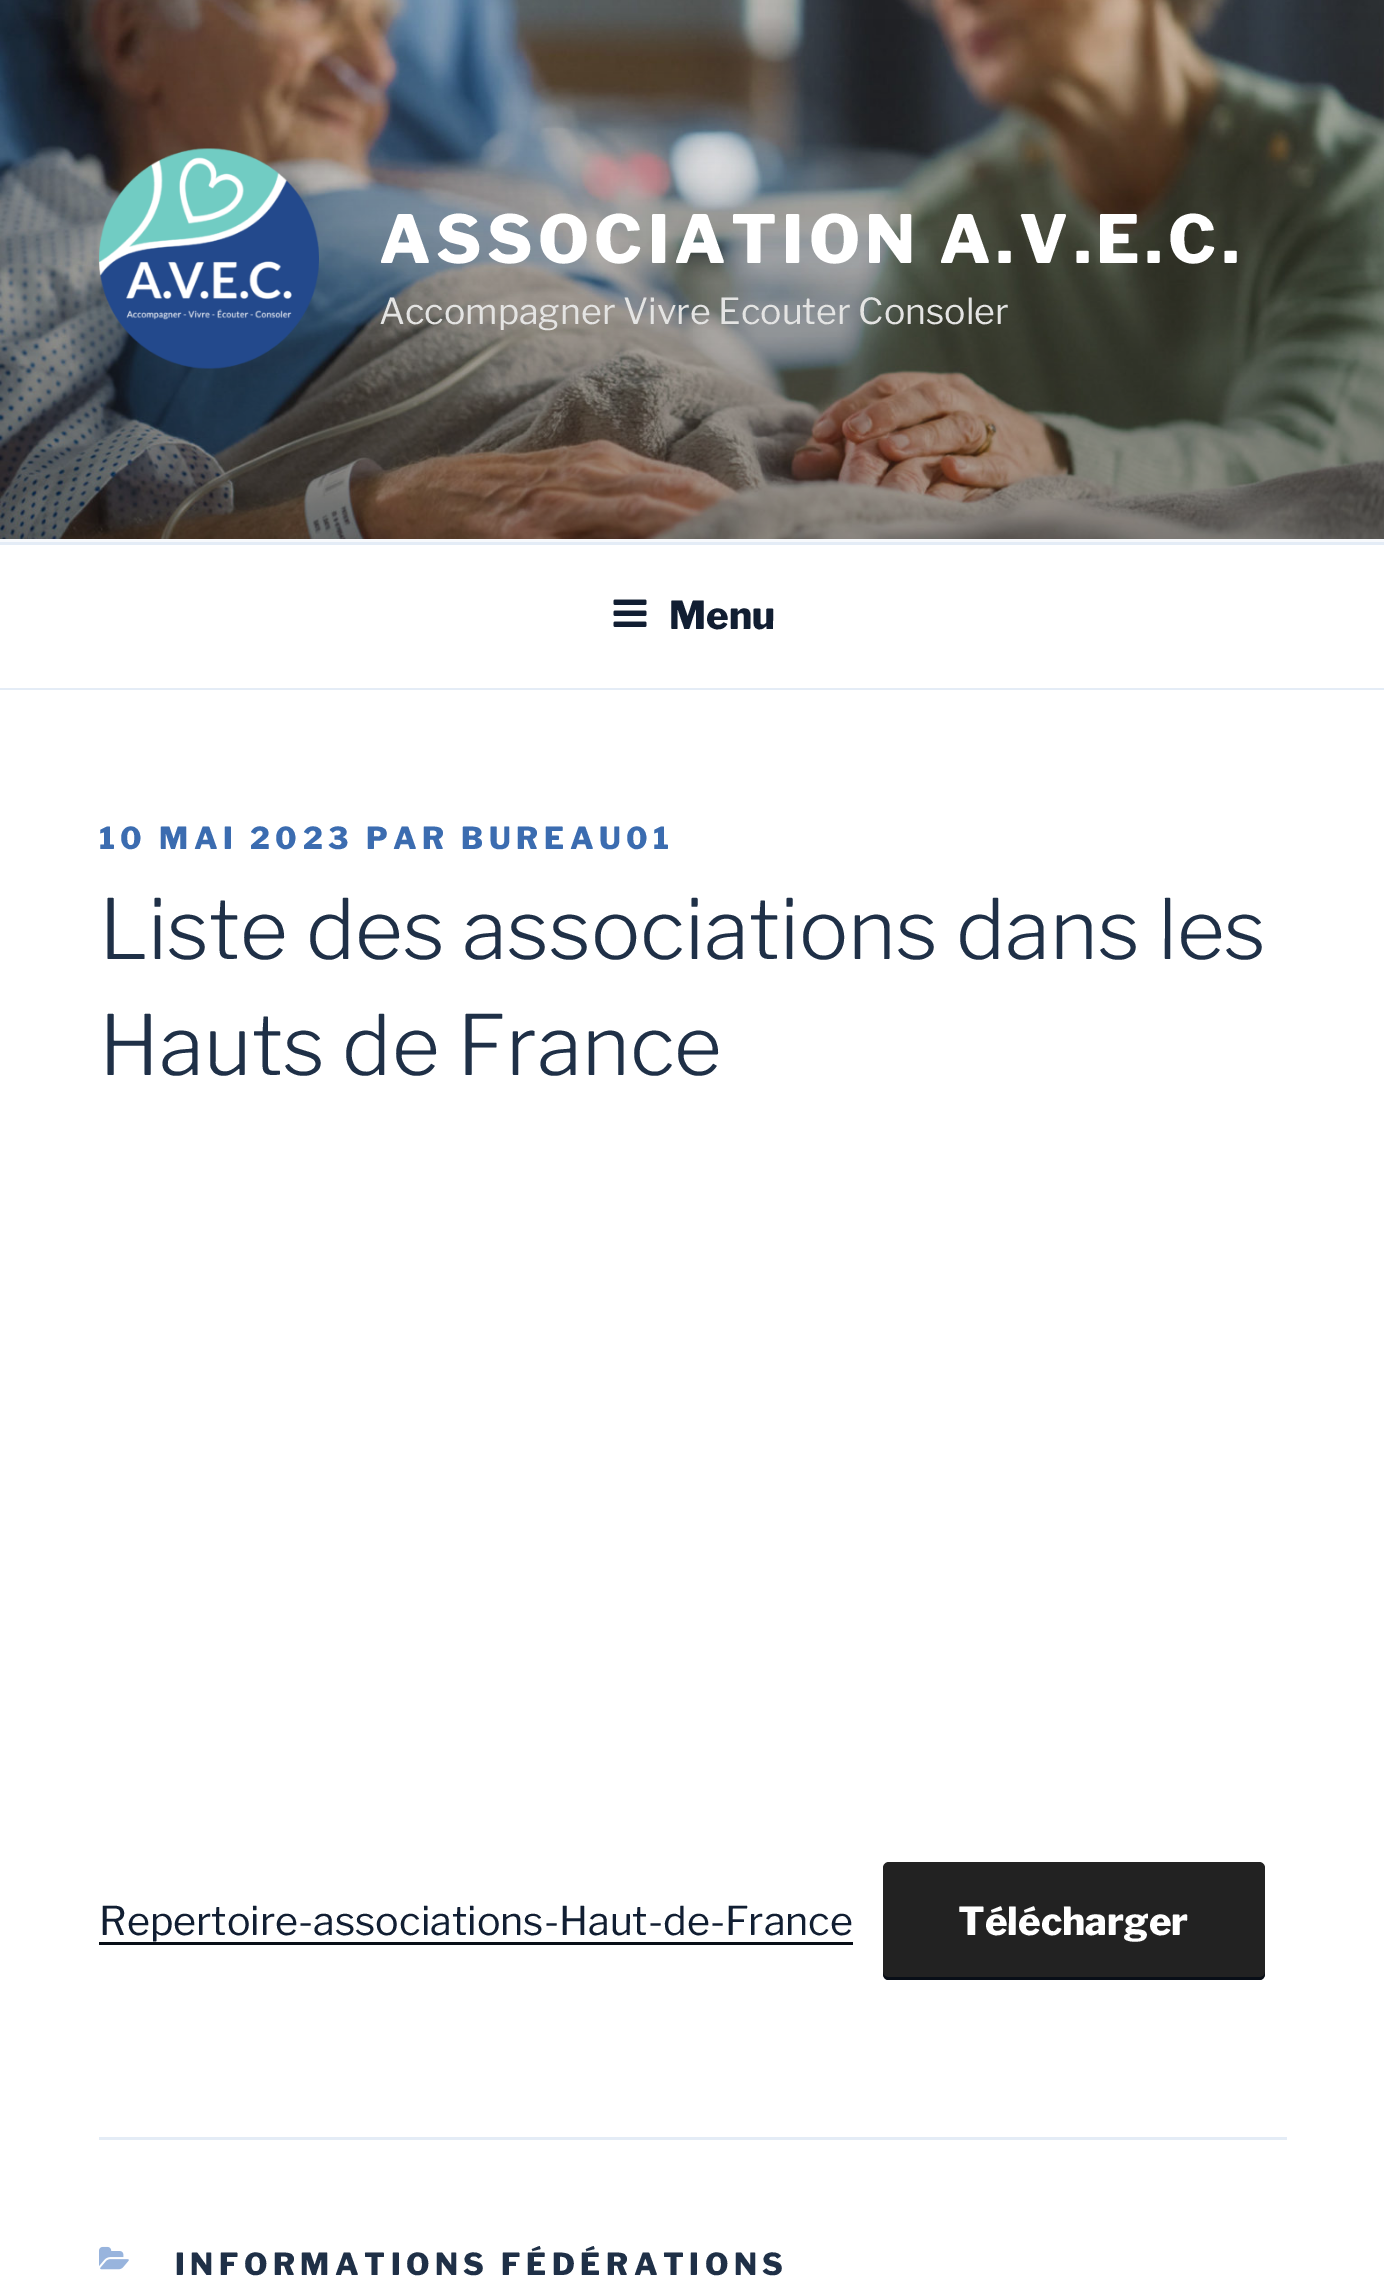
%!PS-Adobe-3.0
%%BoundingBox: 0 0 1384 2285
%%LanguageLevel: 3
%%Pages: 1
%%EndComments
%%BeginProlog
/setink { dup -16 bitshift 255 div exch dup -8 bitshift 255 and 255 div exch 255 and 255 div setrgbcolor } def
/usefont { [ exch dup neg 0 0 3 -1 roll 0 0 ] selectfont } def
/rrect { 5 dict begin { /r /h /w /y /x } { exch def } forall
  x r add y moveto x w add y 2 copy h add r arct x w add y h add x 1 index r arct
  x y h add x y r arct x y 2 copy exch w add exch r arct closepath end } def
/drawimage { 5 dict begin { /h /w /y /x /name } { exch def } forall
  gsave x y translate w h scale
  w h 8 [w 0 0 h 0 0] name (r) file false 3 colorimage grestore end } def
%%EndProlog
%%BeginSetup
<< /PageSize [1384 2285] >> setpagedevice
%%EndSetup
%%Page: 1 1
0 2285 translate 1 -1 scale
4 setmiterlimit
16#F7F9FC setink
0 0 1384 2285 rectfill
(img1.raw) 0 0 1384 539 drawimage
(img2.raw) 99 148 220 221 drawimage
/LibreFranklin-Thin 66 usefont
16#FFFFFF setink
379 263 moveto 5.25 0 (ASSOCIATION A.V.E.C.) ashow
/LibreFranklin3-Thin 35.75 usefont
16#E4E4E3 setink
379 324 moveto (Accompagner Vivre Ecouter Consoler) show
[
    [0 545 1384 143 16#FFFFFF]
    [0 542 1384 3 16#E4ECF6]
    [0 688 1384 2 16#E4ECF6]
] { aload pop setink rectfill } forall
(img3.raw) 613 599 34 28 drawimage
/LibreFranklin-Thin 38.5 usefont
16#111E32 setink
669 629 moveto (Menu) show
16#FFFFFF setink
0 690 1384 1595 rectfill
/LibreFranklin-Thin 30.25 usefont
16#3B6CB0 setink
99 849 moveto 5.5 0 (10 MAI 2023 PAR BUREAU01) ashow
/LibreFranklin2-Thin 82.5 usefont
16#1F3047 setink
99 959 moveto (Liste des associations dans les) show
99 1075 moveto (Hauts de France) show
/LibreFranklin3-Thin 39.6 usefont
16#111E32 setink
99 1935 moveto (Repertoire-associations-Haut-de-France) show
16#080E17 setink
99 1942 754 3 rectfill
16#222222 setink
883 1862 382 118 6 rrect fill
16#080E17 setink
883 1972 moveto 883 1976 884 1980 889 1980 curveto 1259 1980 lineto 1264 1980 1265 1976 1265 1972 curveto 1265 1975 1263 1977 1260 1977 curveto 888 1977 lineto 885 1977 883 1975 883 1972 curveto closepath fill
/LibreFranklin-Thin 38.5 usefont
16#FFFFFF setink
958 1935 moveto (Télécharger) show
16#E4ECF6 setink
99 2137 1188 3 rectfill
(img4.raw) 99 2246 30 24 drawimage
/LibreFranklin-Thin 30.25 usefont
16#1F3047 setink
175 2275 moveto 5.5 0 (INFORMATIONS FÉDÉRATIONS) ashow
showpage
%%EOF
